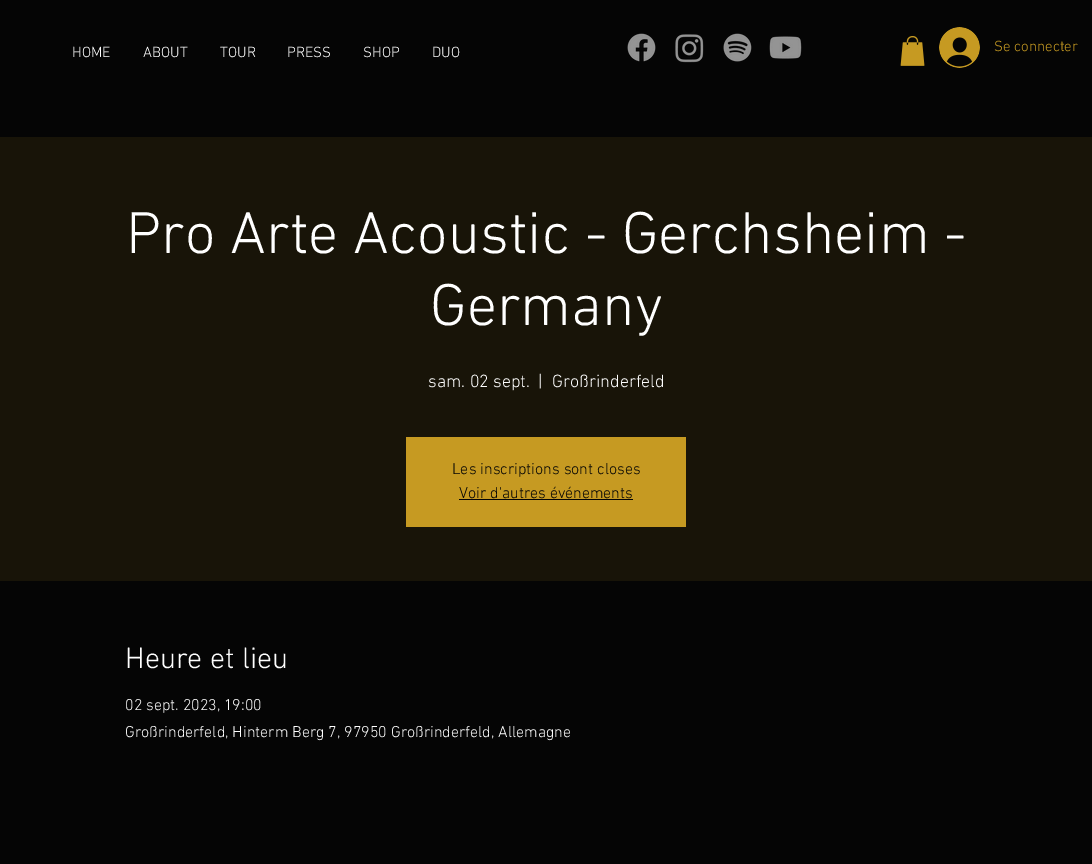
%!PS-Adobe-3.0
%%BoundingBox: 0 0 1092 864
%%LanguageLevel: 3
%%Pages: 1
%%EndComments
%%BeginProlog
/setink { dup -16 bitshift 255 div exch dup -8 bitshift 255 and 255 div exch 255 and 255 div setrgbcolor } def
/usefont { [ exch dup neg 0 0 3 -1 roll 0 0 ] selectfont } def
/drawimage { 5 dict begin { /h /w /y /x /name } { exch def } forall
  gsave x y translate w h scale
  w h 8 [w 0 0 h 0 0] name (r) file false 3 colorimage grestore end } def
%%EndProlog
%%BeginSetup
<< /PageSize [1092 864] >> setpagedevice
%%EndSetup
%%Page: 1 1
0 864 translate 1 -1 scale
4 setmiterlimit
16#050505 setink
0 0 1092 864 rectfill
/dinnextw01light-Light 15 usefont
16#FFFFFF setink
[
    [(HOME) 72 57]
    [(ABOUT) 143 57]
    [(TOUR) 220 57]
    [(PRESS) 287 57]
    [(SHOP) 363 57]
    [(DUO) 432 57]
] { aload pop moveto show } forall
(img1.raw) 627 33 29 29 drawimage
(img2.raw) 675 34 29 29 drawimage
(img3.raw) 723 33 29 29 drawimage
(img4.raw) 769 36 33 23 drawimage
(img5.raw) 900 36 25 30 drawimage
(img6.raw) 939 27 41 41 drawimage
16#C69A22 setink
994 51 moveto (Se connecter) show
16#181408 setink
0 137 1092 444 rectfill
/dinnextw01light-Light 60 usefont
16#FFFFFF setink
126 253 moveto (Pro Arte Acoustic - Gerchsheim -) show
430 325 moveto (Germany) show
/dinnextw01light-Light 18 usefont
[
    [(sam. 02 sept.) 428 387]
    [(|) 538 387]
    [(Großrinderfeld) 552 387]
] { aload pop moveto show } forall
16#C69A22 setink
406 437 280 90 rectfill
/dinnextw01light-Light 16 usefont
16#050505 setink
452 474 moveto (Les inscriptions sont closes) show
459 498 moveto (Voir d'autres événements) show
459 499 174 1 rectfill
/dinnextw01light-Light 30 usefont
16#FFFFFF setink
125 668 moveto (Heure et lieu) show
/dinnextw01light-Light 16 usefont
125 710 moveto (02 sept. 2023, 19:00) show
125 737 moveto (Großrinderfeld, Hinterm Berg 7, 97950 Großrinderfeld, Allemagne) show
showpage
%%EOF
